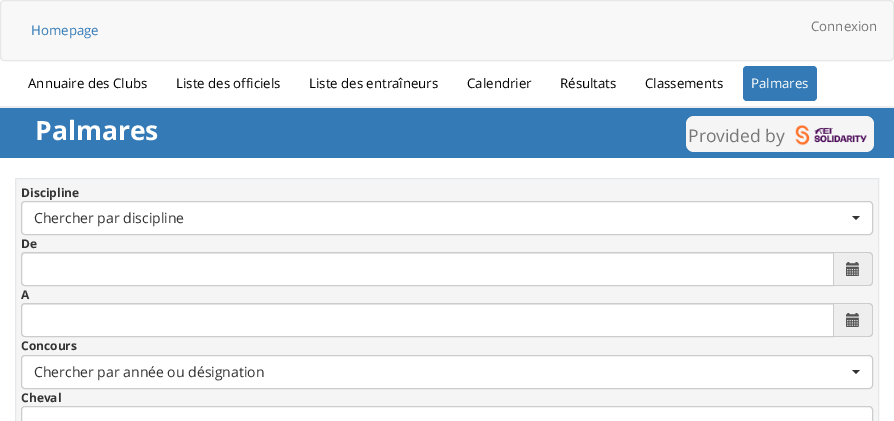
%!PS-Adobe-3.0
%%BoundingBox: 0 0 894 421
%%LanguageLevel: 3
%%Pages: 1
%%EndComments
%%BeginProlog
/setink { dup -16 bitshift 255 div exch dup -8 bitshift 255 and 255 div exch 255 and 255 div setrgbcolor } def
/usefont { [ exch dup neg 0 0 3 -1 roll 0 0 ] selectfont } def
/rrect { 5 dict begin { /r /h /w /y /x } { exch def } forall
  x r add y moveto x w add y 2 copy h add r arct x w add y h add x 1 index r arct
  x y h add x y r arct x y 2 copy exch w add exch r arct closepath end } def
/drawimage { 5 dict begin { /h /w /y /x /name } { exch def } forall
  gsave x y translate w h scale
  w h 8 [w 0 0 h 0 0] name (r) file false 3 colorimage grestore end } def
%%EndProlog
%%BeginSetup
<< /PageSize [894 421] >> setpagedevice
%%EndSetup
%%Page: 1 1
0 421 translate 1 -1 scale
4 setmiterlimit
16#FFFFFF setink
0 0 894 421 rectfill
16#F8F8F8 setink
0.5 0.5 893 60 3.5 rrect gsave fill grestore
16#E7E7E7 setink
stroke
/OpenSans-Regular 13.25 usefont
16#337AB7 setink
31 35 moveto (Homepage) show
16#777777 setink
811 31 moveto (Connexion) show
16#EEEEEE setink
0 106 894 2 rectfill
16#000000 setink
[
    [(Annuaire des Clubs) 28 88]
    [(Liste des officiels) 176 88]
    [(Liste des entraîneurs) 309 88]
    [(Calendrier) 467 88]
    [(Résultats) 560 88]
    [(Classements) 645 88]
] { aload pop moveto show } forall
16#337AB7 setink
743 66 74 35 4 rrect fill
16#FFFFFF setink
751 88 moveto (Palmares) show
16#337AB7 setink
0 108 894 50 rectfill
/OpenSans-Bold 26.5 usefont
16#FFFFFF setink
35 140 moveto (Palmares) show
16#F5F5F5 setink
686 116 188 36 8 rrect fill
/OpenSans-Regular 17.5 usefont
16#777777 setink
688 142 moveto (Provided by) show
(img1.raw) 795 125 72 21 drawimage
16#F5F5F5 setink
15.5 178.5 moveto 878.5 178.5 lineto 878.5 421.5 lineto 15.5 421.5 lineto closepath gsave fill grestore
16#E5E8EB setink
stroke
/OpenSans-Bold 12 usefont
16#333333 setink
21 197 moveto (Discipline) show
16#FFFFFF setink
21.5 201.5 851 33 3.5 rrect gsave fill grestore
16#CCCCCC setink
stroke
/OpenSans-Regular 14 usefont
16#333333 setink
34 223 moveto (Chercher par discipline) show
852 216 moveto 860 216 lineto 856 220 lineto closepath fill
/OpenSans-Bold 12 usefont
21 248 moveto (De) show
16#FFFFFF setink
25 252 moveto 834 252 lineto 834 286 lineto 25 286 lineto 23 286 21 284 21 282 curveto 21 256 lineto 21 254 23 252 25 252 curveto closepath fill
16#ECECEC setink
25 254 moveto 833 254 lineto 833 253 lineto 25 253 lineto 23 253 22 255 22 257 curveto 22 255 23 254 25 254 curveto closepath fill
16#CCCCCC setink
25 252.5 moveto 833.5 252.5 lineto 833.5 285.5 lineto 25 285.5 lineto 23 285.5 21.5 284 21.5 282 curveto 21.5 256 lineto 21.5 254 23 252.5 25 252.5 curveto closepath stroke
16#EEEEEE setink
834 252 moveto 869 252 lineto 871 252 873 254 873 256 curveto 873 282 lineto 873 284 871 286 869 286 curveto 834 286 lineto closepath fill
16#CCCCCC setink
834 252 moveto 869 252 lineto 871 252 873 254 873 256 curveto 873 282 lineto 873 284 871 286 869 286 curveto 834 286 lineto closepath 834 253 moveto 869 253 lineto 870.5 253 872 254.5 872 256 curveto 872 282 lineto 872 283.5 870.5 285 869 285 curveto 834 285 lineto closepath eofill
(img2.raw) 846 262 13 14 drawimage
16#333333 setink
21 299 moveto (A) show
16#FFFFFF setink
25 303 moveto 834 303 lineto 834 337 lineto 25 337 lineto 23 337 21 335 21 333 curveto 21 307 lineto 21 305 23 303 25 303 curveto closepath fill
16#ECECEC setink
25 305 moveto 833 305 lineto 833 304 lineto 25 304 lineto 23 304 22 306 22 308 curveto 22 306 23 305 25 305 curveto closepath fill
16#CCCCCC setink
25 303.5 moveto 833.5 303.5 lineto 833.5 336.5 lineto 25 336.5 lineto 23 336.5 21.5 335 21.5 333 curveto 21.5 307 lineto 21.5 305 23 303.5 25 303.5 curveto closepath stroke
16#EEEEEE setink
834 303 moveto 869 303 lineto 871 303 873 305 873 307 curveto 873 333 lineto 873 335 871 337 869 337 curveto 834 337 lineto closepath fill
16#CCCCCC setink
834 303 moveto 869 303 lineto 871 303 873 305 873 307 curveto 873 333 lineto 873 335 871 337 869 337 curveto 834 337 lineto closepath 834 304 moveto 869 304 lineto 870.5 304 872 305.5 872 307 curveto 872 333 lineto 872 334.5 870.5 336 869 336 curveto 834 336 lineto closepath eofill
(img2.raw) 846 313 13 14 drawimage
16#333333 setink
21 350 moveto (Concours) show
16#FFFFFF setink
21.5 355.5 851 33 3.5 rrect gsave fill grestore
16#CCCCCC setink
stroke
/OpenSans-Regular 14 usefont
16#333333 setink
34 377 moveto (Chercher par année ou désignation) show
852 370 moveto 860 370 lineto 856 374 lineto closepath fill
/OpenSans-Bold 12 usefont
21 402 moveto (Cheval) show
16#FFFFFF setink
21.5 406.5 851 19 3.5 rrect gsave fill grestore
16#CCCCCC setink
stroke
showpage
%%EOF
